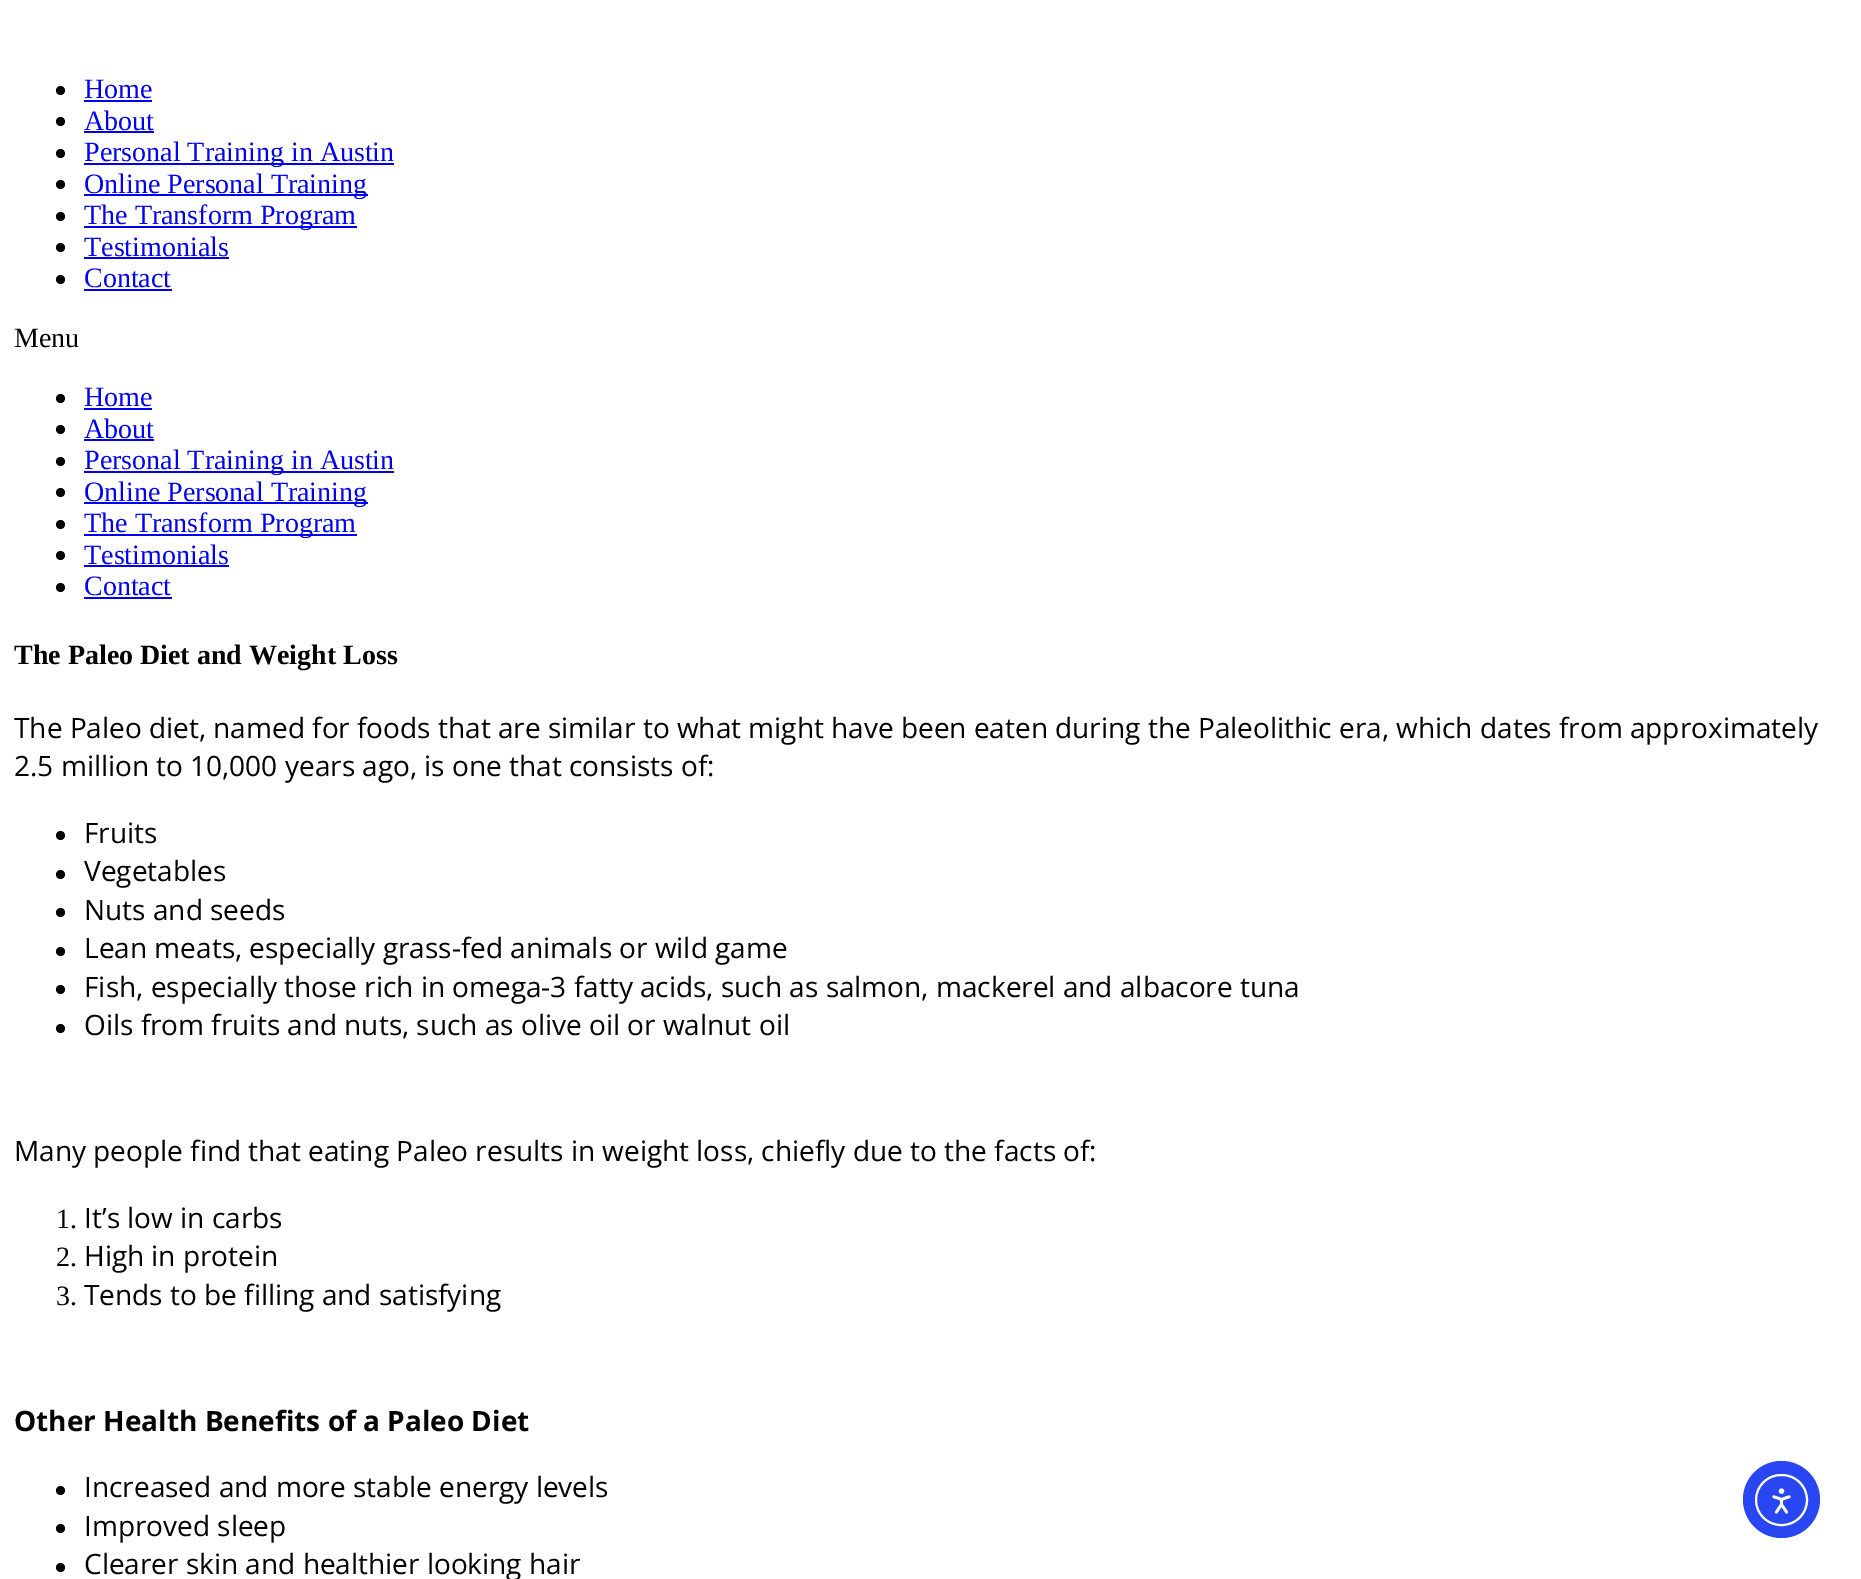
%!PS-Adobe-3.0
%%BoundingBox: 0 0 1861 1579
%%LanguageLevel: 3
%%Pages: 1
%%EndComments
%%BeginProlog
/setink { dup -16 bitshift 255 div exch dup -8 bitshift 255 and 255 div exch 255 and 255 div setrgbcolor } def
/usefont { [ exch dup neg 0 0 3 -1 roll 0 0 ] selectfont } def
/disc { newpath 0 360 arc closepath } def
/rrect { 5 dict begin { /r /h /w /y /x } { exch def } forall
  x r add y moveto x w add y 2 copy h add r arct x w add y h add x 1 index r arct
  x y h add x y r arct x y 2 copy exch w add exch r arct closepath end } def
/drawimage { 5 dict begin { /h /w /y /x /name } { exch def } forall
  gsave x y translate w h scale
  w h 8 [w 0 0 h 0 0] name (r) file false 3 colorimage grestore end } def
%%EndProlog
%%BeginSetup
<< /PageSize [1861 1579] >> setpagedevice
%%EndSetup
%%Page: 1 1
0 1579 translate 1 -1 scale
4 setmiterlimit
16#FFFFFF setink
0 0 1861 1579 rectfill
16#000000 setink
60.5 90.5 4.5 disc fill
/LiberationSerif-Regular 28 usefont
16#0000EE setink
84 98 moveto (Home) show
84 100 68 2 rectfill
16#000000 setink
60.5 121.5 4.5 disc fill
16#0000EE setink
84 130 moveto (About) show
84 131 70 2 rectfill
16#000000 setink
60.5 153.5 4.5 disc fill
16#0000EE setink
84 163 310 2 rectfill
84 161 moveto (Personal Training in Austin) show
16#000000 setink
60.5 184.5 4.5 disc fill
16#0000EE setink
84 194 284 2 rectfill
84 193 moveto (Online Personal Training) show
16#000000 setink
60.5 216.5 4.5 disc fill
16#0000EE setink
84 226 273 2 rectfill
84 224 moveto (The Transform Program) show
16#000000 setink
60.5 247.5 4.5 disc fill
16#0000EE setink
84 256 moveto (Testimonials) show
84 257 145 2 rectfill
16#000000 setink
60.5 279.5 4.5 disc fill
16#0000EE setink
84 287 moveto (Contact) show
84 289 88 2 rectfill
16#000000 setink
14 347 moveto (Menu) show
60.5 398.5 4.5 disc fill
16#0000EE setink
84 406 moveto (Home) show
84 408 68 2 rectfill
16#000000 setink
60.5 429.5 4.5 disc fill
16#0000EE setink
84 438 moveto (About) show
84 439 70 2 rectfill
16#000000 setink
60.5 461.5 4.5 disc fill
16#0000EE setink
84 471 310 2 rectfill
84 469 moveto (Personal Training in Austin) show
16#000000 setink
60.5 492.5 4.5 disc fill
16#0000EE setink
84 502 284 2 rectfill
84 501 moveto (Online Personal Training) show
16#000000 setink
60.5 524.5 4.5 disc fill
16#0000EE setink
84 534 273 2 rectfill
84 532 moveto (The Transform Program) show
16#000000 setink
60.5 555.5 4.5 disc fill
16#0000EE setink
84 564 moveto (Testimonials) show
84 565 145 2 rectfill
16#000000 setink
60.5 587.5 4.5 disc fill
16#0000EE setink
84 595 moveto (Contact) show
84 597 88 2 rectfill
/LiberationSerif-Bold 28 usefont
16#000000 setink
14 664 moveto (The Paleo Diet and Weight Loss) show
/OpenSans-Regular 28 usefont
14 738 moveto (The Paleo diet, named for foods that are similar to what might have been eaten during the Paleolithic era, which dates from approximately) show
14 776 moveto (2.5 million to 10,000 years ago, is one that consists of:) show
60.5 835.5 4.5 disc fill
84 843 moveto (Fruits) show
60.5 874.5 4.5 disc fill
84 881 moveto (Vegetables) show
60.5 912.5 4.5 disc fill
84 920 moveto (Nuts and seeds) show
60.5 951.5 4.5 disc fill
84 958 moveto (Lean meats, especially grass-fed animals or wild game) show
60.5 989.5 4.5 disc fill
84 997 moveto (Fish, especially those rich in omega-3 fatty acids, such as salmon, mackerel and albacore tuna) show
60.5 1028.5 4.5 disc fill
84 1035 moveto (Oils from fruits and nuts, such as olive oil or walnut oil) show
14 1161 moveto (Many people find that eating Paleo results in weight loss, chiefly due to the facts of:) show
/LiberationSerif-Regular 28 usefont
56 1228 moveto (1.) show
/OpenSans-Regular 28 usefont
84 1228 moveto (It’s low in carbs) show
/LiberationSerif-Regular 28 usefont
56 1266 moveto (2.) show
/OpenSans-Regular 28 usefont
84 1266 moveto (High in protein) show
/LiberationSerif-Regular 28 usefont
56 1305 moveto (3.) show
/OpenSans-Regular 28 usefont
84 1305 moveto (Tends to be filling and satisfying) show
/OpenSans-Bold 28 usefont
14 1431 moveto (Other Health Benefits of a Paleo Diet) show
60.5 1490.5 4.5 disc fill
/OpenSans-Regular 28 usefont
84 1497 moveto (Increased and more stable energy levels) show
60.5 1528.5 4.5 disc fill
84 1536 moveto (Improved sleep) show
60.5 1567.5 4.5 disc fill
84 1574 moveto (Clearer skin and healthier looking hair) show
16#2847F3 setink
1781.5 1499.5 38.5 disc fill
16#FFFFFF setink
2 setlinewidth
1756 1475 51 50 25 rrect stroke
(img1.raw) 1772 1488 19 26 drawimage
showpage
%%EOF
